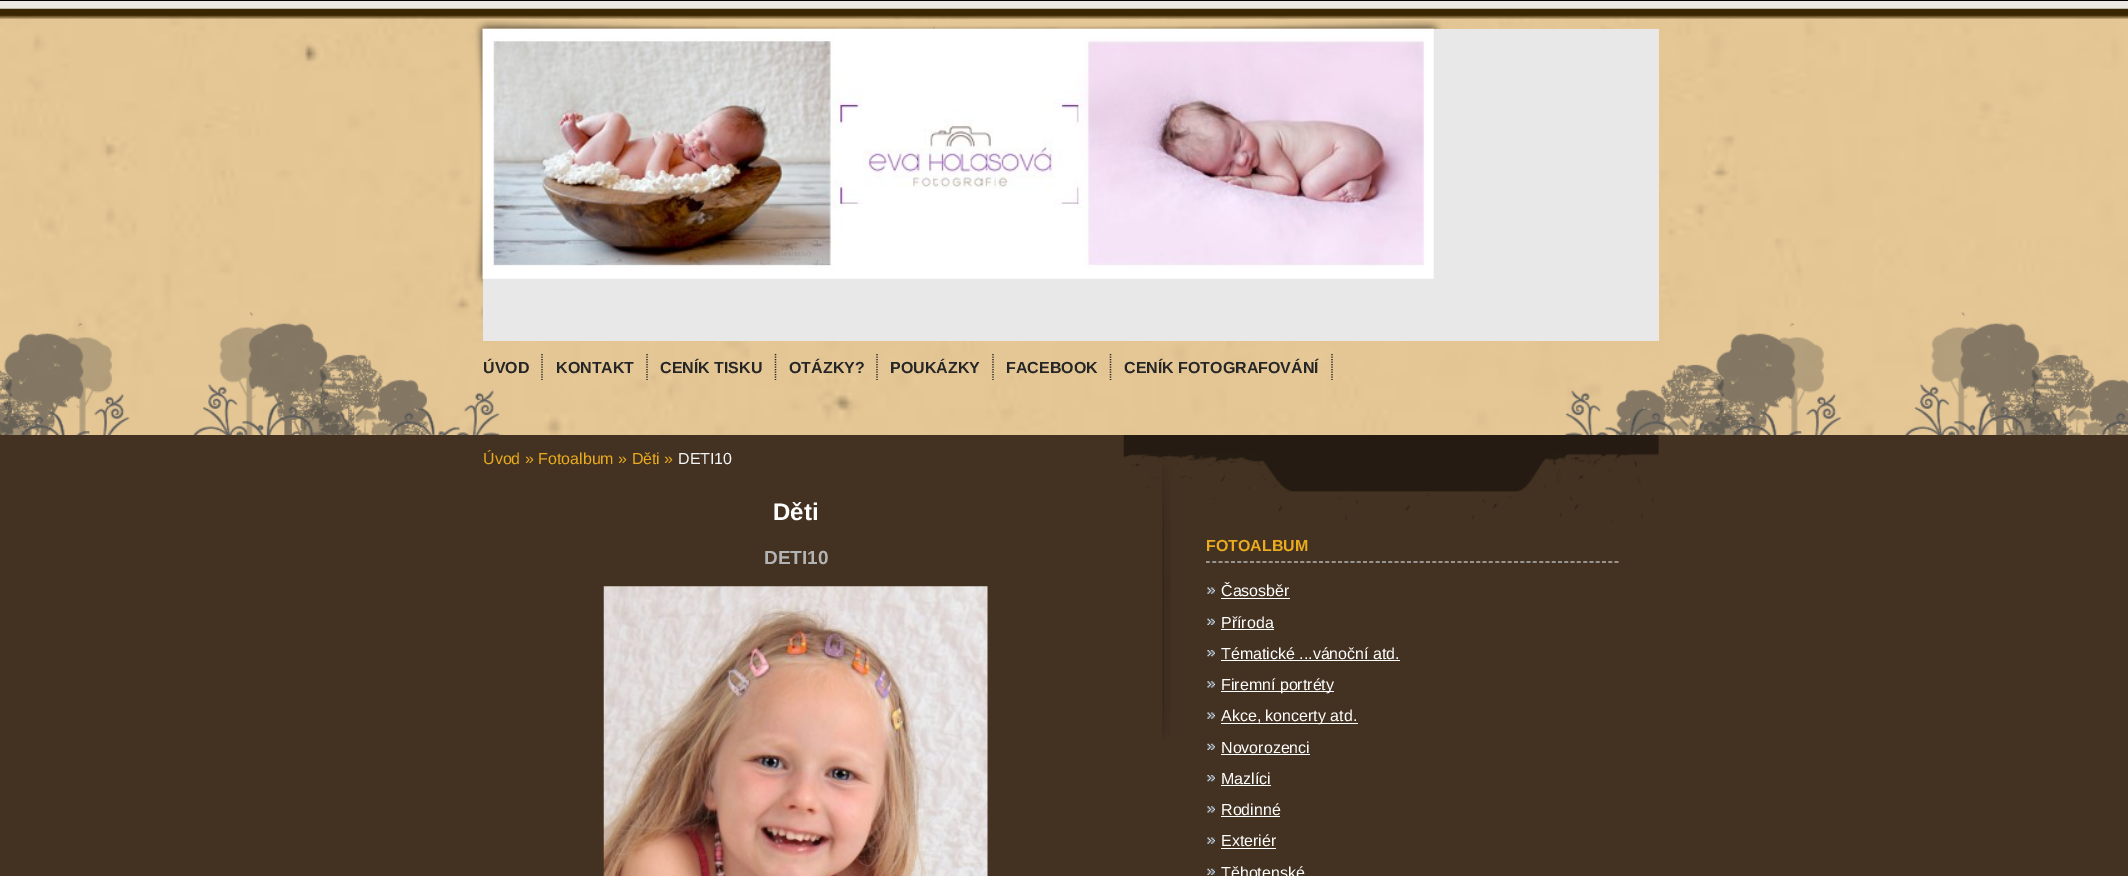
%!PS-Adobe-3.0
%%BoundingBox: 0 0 2128 876
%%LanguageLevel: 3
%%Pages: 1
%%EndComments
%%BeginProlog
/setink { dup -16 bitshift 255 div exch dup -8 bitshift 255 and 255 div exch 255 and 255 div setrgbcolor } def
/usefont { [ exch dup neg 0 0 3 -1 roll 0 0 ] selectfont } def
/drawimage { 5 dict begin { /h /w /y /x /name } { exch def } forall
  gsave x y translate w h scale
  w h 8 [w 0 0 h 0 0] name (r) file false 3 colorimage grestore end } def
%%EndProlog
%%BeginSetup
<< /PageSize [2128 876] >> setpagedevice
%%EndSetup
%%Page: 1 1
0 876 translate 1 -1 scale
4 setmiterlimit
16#433222 setink
0 0 2128 876 rectfill
16#000000 setink
0 0 2128 1 rectfill
16#EBE8E3 setink
0 1 2128 8 rectfill
(img1.raw) 0 8 2128 427 drawimage
(img2.raw) 0 312 503 123 drawimage
(img3.raw) 1565 312 563 123 drawimage
(img4.raw) 1162 465 9 274 drawimage
(img5.raw) 474 20 971 268 drawimage
16#E8E8E8 setink
483 29 1176 312 rectfill
(img6.raw) 482 28 952 251 drawimage
16#252525 setink
1.2 setlinewidth
[1.25 1.25] 0 setdash
542 354 moveto 542 380 lineto stroke
/LiberationSans-Bold 16 usefont
16#262626 setink
483 373 moveto (ÚVOD) show
16#252525 setink
647 354 moveto 647 380 lineto stroke
16#262626 setink
556 373 moveto (KONTAKT) show
16#252525 setink
775.5 354 moveto 775.5 380 lineto stroke
16#262626 setink
660 373 moveto (CENÍK TISKU) show
16#252525 setink
877 354 moveto 877 380 lineto stroke
16#262626 setink
789 373 moveto (OTÁZKY?) show
16#252525 setink
993 354 moveto 993 380 lineto stroke
16#262626 setink
890 373 moveto (POUKÁZKY) show
16#252525 setink
1110.5 354 moveto 1110.5 380 lineto stroke
16#262626 setink
1006 373 moveto (FACEBOOK) show
16#252525 setink
1332 354 moveto 1332 380 lineto stroke
16#262626 setink
1124 373 moveto (CENÍK FOTOGRAFOVÁNÍ) show
/LiberationSans-Regular 16 usefont
16#EAAB1E setink
483 464 moveto (Úvod » Fotoalbum » Děti ») show
16#F5F5F5 setink
678 464 moveto (DETI10) show
/LiberationSans-Bold 24 usefont
16#FFFFFF setink
773 520 moveto (Děti) show
/LiberationSans-Bold 19 usefont
16#B3B3B3 setink
764 564 moveto (DETI10) show
(img7.raw) 603 586 385 290 drawimage
(img8.raw) 1123 435 536 88 drawimage
16#B8B8B8 setink
[3.75 2.54] 0 setdash
1206 562 moveto 1619 562 lineto stroke
/LiberationSans-Bold 16 usefont
16#EAAB1E setink
1206 551 moveto (FOTOALBUM) show
(img9.raw) 1207 587 8 7 drawimage
/LiberationSans-Regular 16 usefont
16#FFFFFF setink
1221 596 moveto (Časosběr) show
1221 598 69 1 rectfill
(img10.raw) 1207 618 8 7 drawimage
1221 628 moveto (Příroda) show
1221 629 53 1 rectfill
(img11.raw) 1207 650 8 7 drawimage
1221 659 moveto (Tématické ...vánoční atd.) show
1221 660 179 1 rectfill
(img12.raw) 1207 681 8 7 drawimage
1221 691 113 1 rectfill
1221 690 moveto (Firemní portréty) show
(img13.raw) 1207 712 8 7 drawimage
1221 723 137 1 rectfill
1221 721 moveto (Akce, koncerty atd.) show
(img10.raw) 1207 743 8 7 drawimage
1221 753 moveto (Novorozenci) show
1221 754 89 1 rectfill
(img11.raw) 1207 775 8 7 drawimage
1221 784 moveto (Mazlíci) show
1221 785 50 1 rectfill
(img12.raw) 1207 806 8 7 drawimage
1221 815 moveto (Rodinné) show
1221 816 59 1 rectfill
(img13.raw) 1207 837 8 7 drawimage
1221 846 moveto (Exteriér) show
1221 848 55 1 rectfill
(img10.raw) 1207 868 8 7 drawimage
1221 878 moveto (Těhotenské) show
showpage
%%EOF
